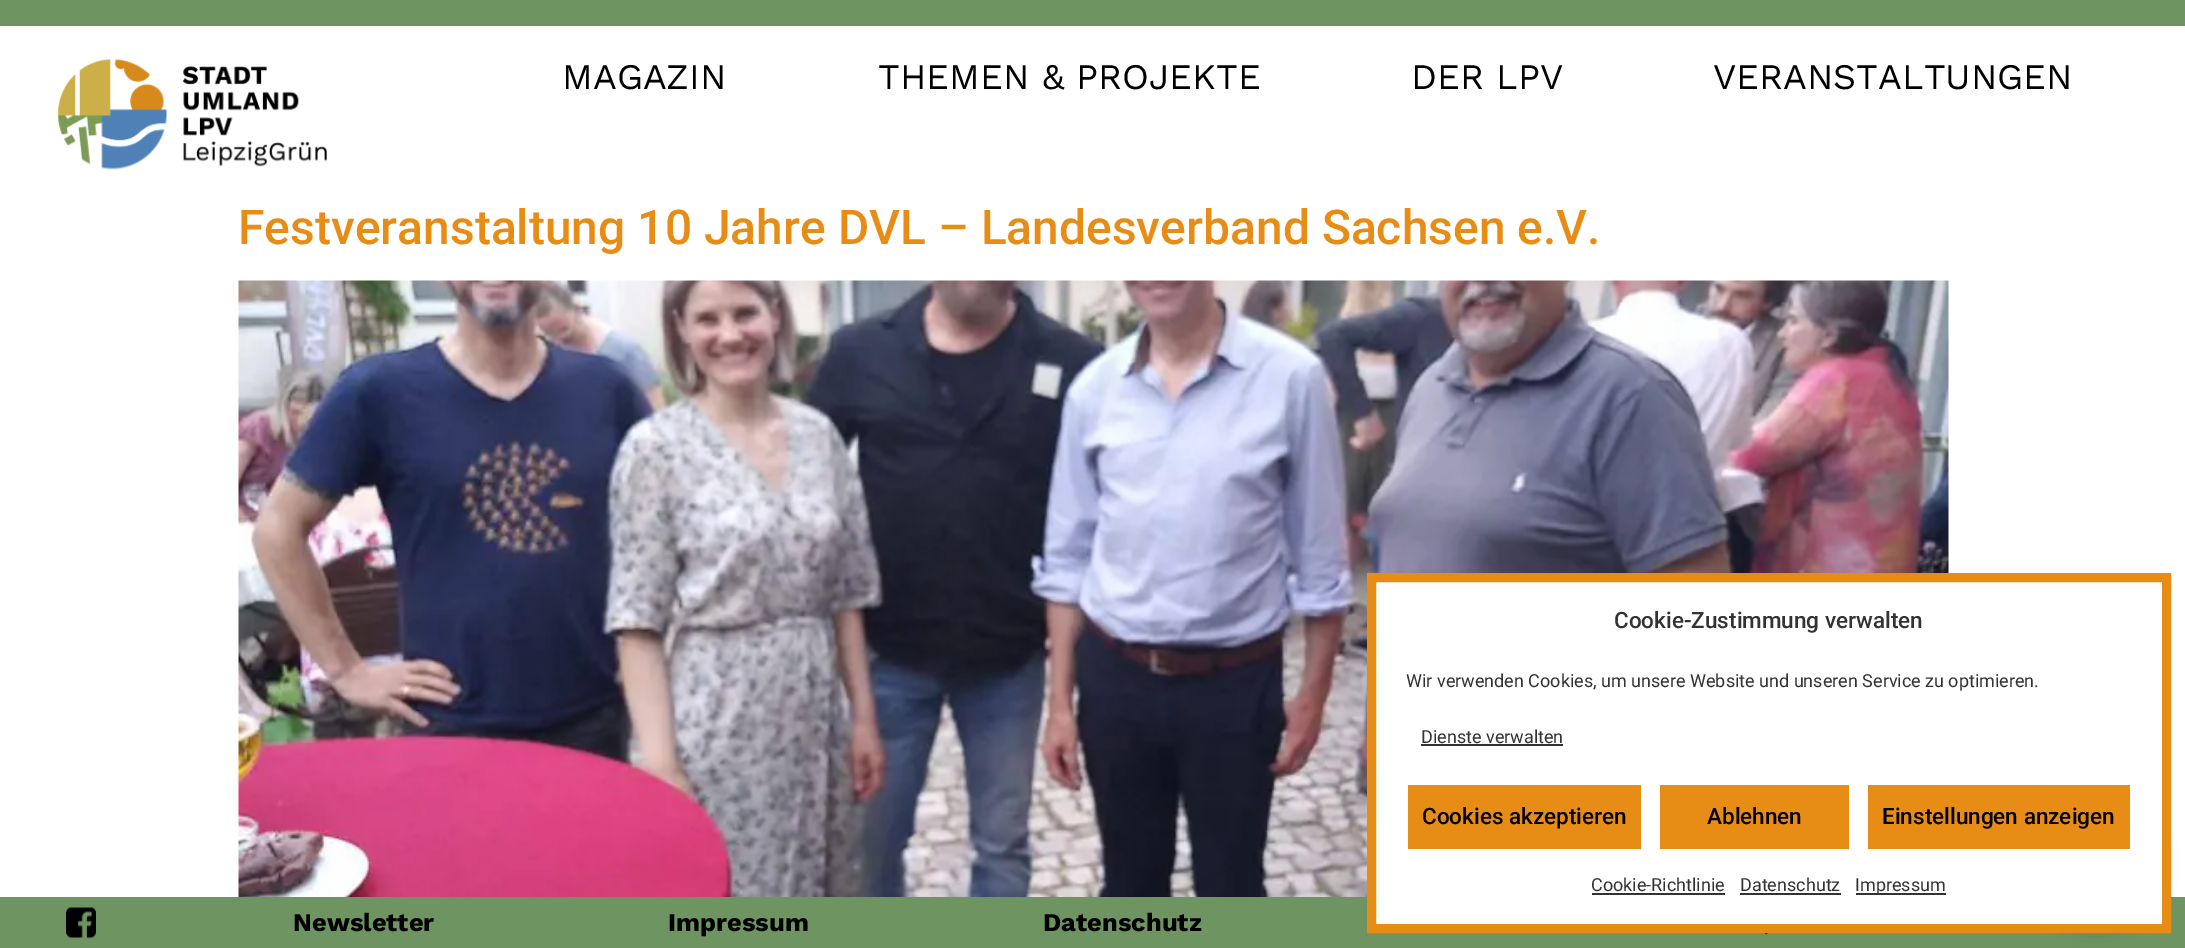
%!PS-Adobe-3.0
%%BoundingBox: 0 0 2185 948
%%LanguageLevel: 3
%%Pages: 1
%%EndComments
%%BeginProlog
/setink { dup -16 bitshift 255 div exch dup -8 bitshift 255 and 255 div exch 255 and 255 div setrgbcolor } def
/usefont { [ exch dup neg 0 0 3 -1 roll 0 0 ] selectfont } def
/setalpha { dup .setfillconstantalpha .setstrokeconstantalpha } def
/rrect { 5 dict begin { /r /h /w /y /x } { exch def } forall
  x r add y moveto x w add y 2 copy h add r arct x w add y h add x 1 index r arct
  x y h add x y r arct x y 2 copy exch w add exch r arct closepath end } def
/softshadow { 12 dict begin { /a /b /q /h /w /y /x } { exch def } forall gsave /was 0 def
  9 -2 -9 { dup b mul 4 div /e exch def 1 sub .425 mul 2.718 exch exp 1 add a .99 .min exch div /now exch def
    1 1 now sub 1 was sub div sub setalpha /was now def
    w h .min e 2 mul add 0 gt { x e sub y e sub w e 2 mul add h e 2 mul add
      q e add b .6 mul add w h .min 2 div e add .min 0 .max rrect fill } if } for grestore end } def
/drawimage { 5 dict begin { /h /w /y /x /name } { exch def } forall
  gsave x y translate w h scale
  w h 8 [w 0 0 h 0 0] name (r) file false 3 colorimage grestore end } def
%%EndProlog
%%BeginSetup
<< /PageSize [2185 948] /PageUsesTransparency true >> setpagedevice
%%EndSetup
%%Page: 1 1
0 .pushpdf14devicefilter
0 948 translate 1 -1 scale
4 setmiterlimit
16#FFFFFF setink
0 0 2185 948 rectfill
16#6E9462 setink
0 0 2185 26 rectfill
(img1.raw) 57 59 270 111 drawimage
/WorkSans-Regular 36 usefont
16#000000 setink
[
    [(MAGAZIN) 562 89]
    [(THEMEN & PROJEKTE) 878 89]
    [(DER LPV) 1411 89]
    [(VERANSTALTUNGEN) 1713 89]
] { aload pop moveto show } forall
/Roboto-Medium 48 usefont
16#E78D16 setink
238 244 moveto (Festveranstaltung 10 Jahre DVL – Landesverband Sachsen e.V.) show
(img2.raw) 238 280 1711 617 drawimage
16#6E9462 setink
0 897 2185 51 rectfill
16#000000 setink
2036 804 120 120 60 11 0.3 softshadow
16#FFFFFF setink
1371.5 577.5 moveto 2166.5 577.5 lineto 2166.5 928.5 lineto 1371.5 928.5 lineto closepath gsave fill grestore
16#E78D16 setink
9 setlinewidth
stroke
/Roboto-Medium 22.5 usefont
16#333333 setink
1614 628 moveto (Cookie-Zustimmung verwalten) show
/Roboto-Regular 18 usefont
1406 687 moveto (Wir verwenden Cookies, um unsere Website und unseren Service zu optimieren.) show
1421 743 moveto (Dienste verwalten) show
1421 744 142 2 rectfill
16#E78D16 setink
1408 785 233 64 rectfill
/Roboto-Medium 22.5 usefont
16#000000 setink
1422 824 moveto (Cookies akzeptieren) show
16#E78D16 setink
1660 785 189 64 rectfill
16#000000 setink
1707 824 moveto (Ablehnen) show
16#E78D16 setink
1868 785 262 64 rectfill
16#000000 setink
1882 824 moveto (Einstellungen anzeigen) show
/Roboto-Regular 18 usefont
16#333333 setink
1591 891 moveto (Cookie-Richtlinie) show
1592 893 133 2 rectfill
1740 891 moveto (Datenschutz) show
1740 893 101 2 rectfill
1856 893 90 2 rectfill
1855 891 moveto (Impressum) show
(img3.raw) 66 907 30 31 drawimage
/WorkSans-Bold 25.5 usefont
16#000000 setink
[
    [(Newsletter) 293 931]
    [(Impressum) 668 931]
    [(Datenschutz) 1043 931]
] { aload pop moveto show } forall
(img4.raw) 1764 933 4 2 drawimage
.poppdf14devicefilter showpage
%%EOF
